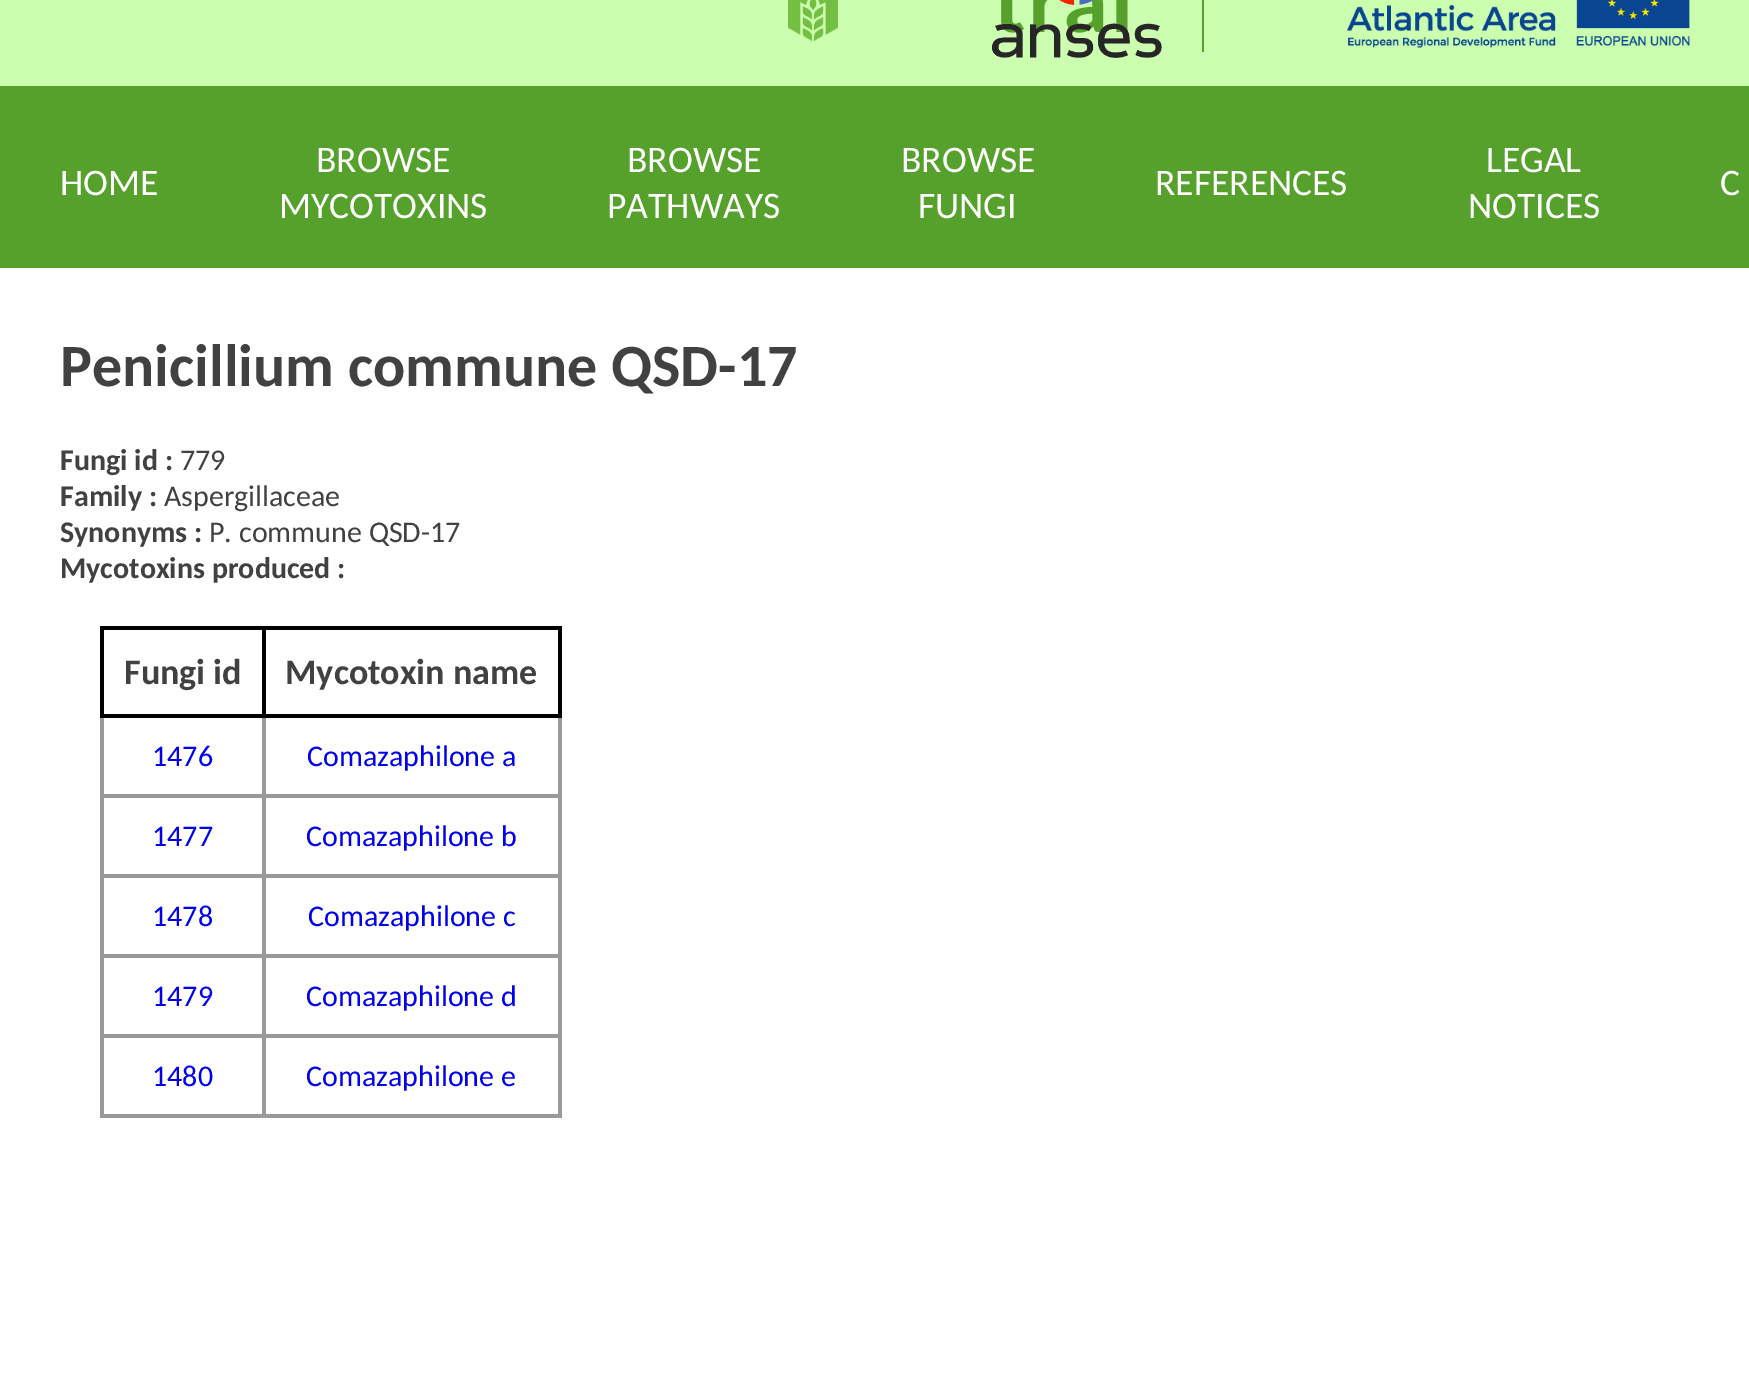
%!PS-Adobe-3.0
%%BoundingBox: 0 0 1749 1397
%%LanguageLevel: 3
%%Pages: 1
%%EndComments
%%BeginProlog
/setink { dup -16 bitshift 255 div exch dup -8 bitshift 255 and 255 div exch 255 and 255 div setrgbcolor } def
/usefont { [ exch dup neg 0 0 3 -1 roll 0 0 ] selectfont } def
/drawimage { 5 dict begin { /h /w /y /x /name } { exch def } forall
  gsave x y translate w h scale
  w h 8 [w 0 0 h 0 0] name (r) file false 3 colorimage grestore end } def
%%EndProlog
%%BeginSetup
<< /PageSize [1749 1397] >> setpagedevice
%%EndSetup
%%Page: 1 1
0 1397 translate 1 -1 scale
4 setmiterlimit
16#FFFFFF setink
0 0 1749 1397 rectfill
16#CBFFAF setink
0 0 1749 86 rectfill
(img1.raw) 788 0 50 42 drawimage
(img2.raw) 992 0 170 58 drawimage
16#55A12B setink
1202 0 2 52 rectfill
(img3.raw) 1346 0 344 48 drawimage
0 86 1749 182 rectfill
/Carlito-Regular 37.5 usefont
16#FFFFFF setink
[
    [(HOME) 60 195]
    [(BROWSE) 316 172]
    [(MYCOTOXINS) 279 218]
    [(BROWSE) 627 172]
    [(PATHWAYS) 607 218]
    [(BROWSE) 901 172]
    [(FUNGI) 918 218]
    [(REFERENCES) 1155 195]
    [(LEGAL) 1486 172]
    [(NOTICES) 1468 218]
    [(C) 1720 195]
] { aload pop moveto show } forall
/Carlito-Bold 60 usefont
16#414141 setink
60 386 moveto (Penicillium commune QSD-17) show
/Carlito-Bold 30 usefont
60 470 moveto (Fungi id :) show
/Carlito-Regular 30 usefont
180 470 moveto (779) show
/Carlito-Bold 30 usefont
60 506 moveto (Family :) show
/Carlito-Regular 30 usefont
164 506 moveto (Aspergillaceae) show
/Carlito-Bold 30 usefont
60 542 moveto (Synonyms :) show
/Carlito-Regular 30 usefont
209 542 moveto (P. commune QSD-17) show
/Carlito-Bold 30 usefont
60 578 moveto (Mycotoxins produced :) show
[
    [262 626 300 4 16#000000]
    [262 794 300 4 16#999999]
    [262 874 300 4 16#999999]
    [262 954 300 4 16#999999]
    [262 1034 300 4 16#999999]
    [558 1034 4 84 16#999999]
    [558 954 4 84 16#999999]
    [558 874 4 84 16#999999]
    [558 714 4 164 16#999999]
    [558 626 4 92 16#000000]
    [262 1114 300 4 16#999999]
    [262 1034 4 84 16#999999]
    [100 1034 166 4 16#999999]
    [262 954 4 84 16#999999]
    [100 954 166 4 16#999999]
    [262 874 4 84 16#999999]
    [100 874 166 4 16#999999]
    [262 794 4 84 16#999999]
    [100 794 166 4 16#999999]
    [262 714 4 84 16#999999]
    [262 714 300 4 16#000000]
    [262 626 4 92 16#000000]
    [100 626 166 4 16#000000]
    [100 1114 166 4 16#999999]
    [100 1034 4 84 16#999999]
    [100 954 4 84 16#999999]
    [100 874 4 84 16#999999]
    [100 714 4 164 16#999999]
    [100 714 166 4 16#000000]
    [100 626 4 92 16#000000]
] { aload pop setink rectfill } forall
/Carlito-Bold 36 usefont
16#414141 setink
124 684 moveto (Fungi id) show
285 684 moveto (Mycotoxin name) show
/Carlito-Regular 30 usefont
16#0000EE setink
[
    [(1476) 152 766]
    [(Comazaphilone a) 307 766]
    [(1477) 152 846]
    [(Comazaphilone b) 306 846]
    [(1478) 152 926]
    [(Comazaphilone c) 308 926]
    [(1479) 152 1006]
    [(Comazaphilone d) 306 1006]
    [(1480) 152 1086]
    [(Comazaphilone e) 306 1086]
] { aload pop moveto show } forall
showpage
%%EOF
